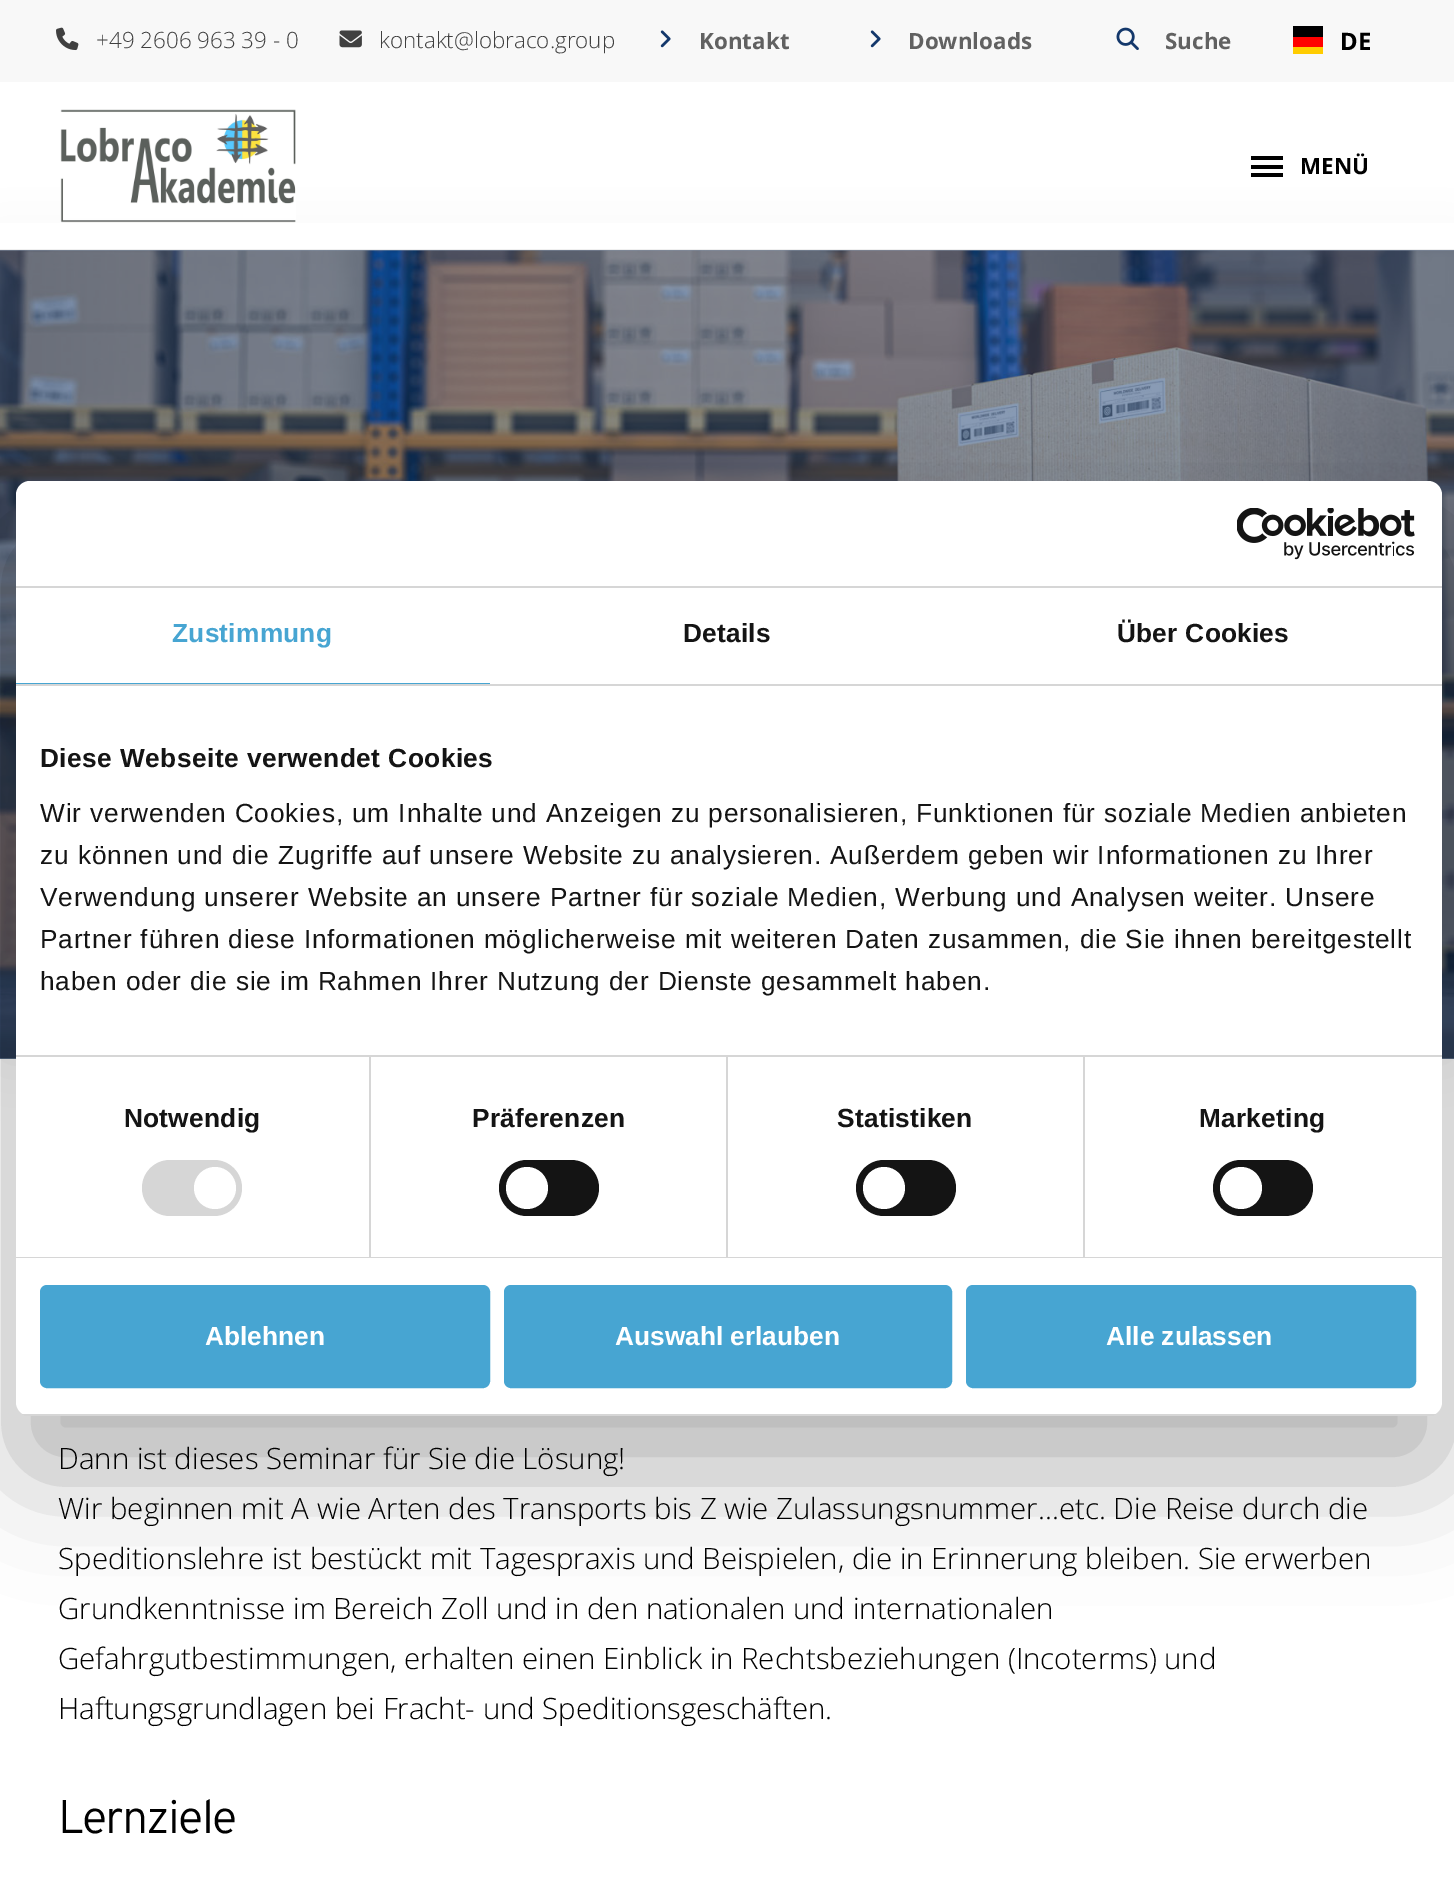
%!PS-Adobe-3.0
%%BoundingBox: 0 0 1454 1894
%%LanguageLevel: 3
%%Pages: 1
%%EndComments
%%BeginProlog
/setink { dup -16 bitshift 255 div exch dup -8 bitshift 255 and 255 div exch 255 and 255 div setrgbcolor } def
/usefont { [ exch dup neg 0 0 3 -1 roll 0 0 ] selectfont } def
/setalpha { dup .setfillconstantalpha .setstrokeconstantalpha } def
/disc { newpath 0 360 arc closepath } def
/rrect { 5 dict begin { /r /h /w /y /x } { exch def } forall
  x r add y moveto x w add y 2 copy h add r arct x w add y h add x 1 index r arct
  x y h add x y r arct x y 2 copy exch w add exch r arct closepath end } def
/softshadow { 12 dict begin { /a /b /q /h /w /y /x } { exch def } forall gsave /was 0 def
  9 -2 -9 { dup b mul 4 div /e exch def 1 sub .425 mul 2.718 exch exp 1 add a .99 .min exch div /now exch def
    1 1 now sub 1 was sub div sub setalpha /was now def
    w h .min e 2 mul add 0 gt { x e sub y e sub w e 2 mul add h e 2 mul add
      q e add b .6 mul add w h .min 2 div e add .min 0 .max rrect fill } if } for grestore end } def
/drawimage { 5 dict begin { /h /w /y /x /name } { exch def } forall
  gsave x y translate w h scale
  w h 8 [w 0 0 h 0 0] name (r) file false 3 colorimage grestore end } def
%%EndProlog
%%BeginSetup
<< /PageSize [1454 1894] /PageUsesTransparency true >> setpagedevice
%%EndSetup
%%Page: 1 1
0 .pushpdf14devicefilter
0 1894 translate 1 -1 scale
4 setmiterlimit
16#FFFFFF setink
0 0 1454 1894 rectfill
16#F8F8F8 setink
0 0 1454 82 rectfill
(img1.raw) 56 27 23 24 drawimage
/OpenSans-Light 22.4 usefont
16#404040 setink
96 48 moveto (+49 2606 963 39 - 0) show
(img2.raw) 339 30 23 18 drawimage
379 48 moveto (kontakt@lobraco.group) show
(img3.raw) 660 30 11 18 drawimage
/OpenSans-Bold 22.4 usefont
16#616161 setink
699 49 moveto (Kontakt) show
(img3.raw) 870 30 11 18 drawimage
908 49 moveto (Downloads) show
(img4.raw) 1116 27 23 23 drawimage
1165 49 moveto (Suche) show
[
    [1293 47 30 7 16#FFCC00]
    [1293 26 30 11 16#000001]
    [1293 37 30 10 16#FF0000]
] { aload pop setink rectfill } forall
/NotoSans-Bold 24 usefont
16#000000 setink
1340 50 moveto (DE) show
16#616161 setink
0 250 1454 809 0 28 0.1 softshadow
16#FFFFFF setink
0 223 1454 27 rectfill
(img6.raw) 0 250 1454 809 drawimage
0.5 setalpha
16#14386B setink
0 250 1454 809 rectfill
0.1 setalpha
16#616161 setink
0 249 1454 2 rectfill
1 setalpha
(img5.raw) 60 109 236 114 drawimage
[
    [1251 156 32 4 16#000000]
    [1251 165 32 4 16#000000]
    [1251 173 32 4 16#000000]
] { aload pop setink rectfill } forall
/OpenSans-Bold 22.4 usefont
1300 174 moveto (MENÜ) show
/OpenSans-Light 29.4 usefont
58 1469 moveto (Dann ist dieses Seminar für Sie die Lösung!) show
58 1519 moveto (Wir beginnen mit A wie Arten des Transports bis Z wie Zulassungsnummer...etc. Die Reise durch die) show
58 1569 moveto -0.1 0 32 (Speditionslehre ist bestückt mit Tagespraxis und Beispielen, die in Erinnerung bleiben. Sie erwerben) widthshow
58 1619 moveto -0.1 0 32 (Grundkenntnisse im Bereich Zoll und in den nationalen und internationalen) widthshow
58 1669 moveto -0.25 0 32 (Gefahrgutbestimmungen, erhalten einen Einblick in Rechtsbeziehungen \(Incoterms\) und) widthshow
58 1719 moveto (Haftungsgrundlagen bei Fracht- und Speditionsgeschäften.) show
/Overpass-Light 47 usefont
58 1833 moveto -1.75 0 (Lernziele) ashow
16 537 1426 935 14 59.5 0.3 softshadow
16#FFFFFF setink
16 481 1426 935 14 rrect fill
16#D6D6D6 setink
16 586 1426 2 rectfill
(img7.raw) 1237 508 178 52 drawimage
16 684 1426 2 rectfill
16#47A5D2 setink
16 683 474 1 rectfill
/LiberationSans-Bold 26.25 usefont
172 642 moveto 0.25 0 (Zustimmung) ashow
16#141414 setink
683 642 moveto 0.25 0 (Details) ashow
1117 642 moveto 0.25 0 (Über Cookies) ashow
16#D6D6D6 setink
16 1055 1426 2 rectfill
16#141414 setink
40 767 moveto 0.45 0 (Diese Webseite verwendet Cookies) ashow
/LiberationSans-Regular 26.25 usefont
40 822 moveto 0.88 0 (Wir verwenden Cookies, um Inhalte und Anzeigen zu personalisieren, Funktionen für soziale Medien anbieten) ashow
40 864 moveto 0.88 0 (zu können und die Zugriffe auf unsere Website zu analysieren. Außerdem geben wir Informationen zu Ihrer) ashow
40 906 moveto 0.88 0 (Verwendung unserer Website an unsere Partner für soziale Medien, Werbung und Analysen weiter. Unsere) ashow
40 948 moveto 0.88 0 (Partner führen diese Informationen möglicherweise mit weiteren Daten zusammen, die Sie ihnen bereitgestellt) ashow
40 990 moveto 0.88 0 (haben oder die sie im Rahmen Ihrer Nutzung der Dienste gesammelt haben.) ashow
16#D6D6D6 setink
16 1257 1426 1 rectfill
369 1057 2 200 rectfill
/LiberationSans-Bold 26.25 usefont
16#141414 setink
124 1127 moveto 0.25 0 (Notwendig) ashow
16#D6D6D6 setink
142 1160 100 56 28 rrect fill
16#FFFFFF setink
215 1188 21 disc fill
16#D6D6D6 setink
726 1057 2 200 rectfill
16#141414 setink
472 1127 moveto 0.25 0 (Präferenzen) ashow
499 1160 100 56 28 rrect fill
16#FFFFFF setink
527 1188 21 disc fill
16#D6D6D6 setink
1083 1057 2 200 rectfill
16#141414 setink
837 1127 moveto 0.25 0 (Statistiken) ashow
856 1160 100 56 28 rrect fill
16#FFFFFF setink
884 1188 21 disc fill
16#141414 setink
1199 1127 moveto 0.25 0 (Marketing) ashow
1213 1160 100 56 28 rrect fill
16#FFFFFF setink
1241 1188 21 disc fill
gsave
16 481 1426 935 14 rrect clip newpath
16#D6D6D6 setink
16 1414 1426 2 rectfill
grestore
16#47A5D2 setink
42 1287 446 99 5 rrect gsave fill grestore
4 setlinewidth
stroke
16#FFFFFF setink
205 1345 moveto (Ablehnen) show
16#47A5D2 setink
506 1287 444 99 5 rrect gsave fill grestore
stroke
16#FFFFFF setink
615 1345 moveto (Auswahl erlauben) show
16#47A5D2 setink
968 1287 446 99 5 rrect gsave fill grestore
stroke
16#FFFFFF setink
1106 1345 moveto (Alle zulassen) show
.poppdf14devicefilter showpage
%%EOF
